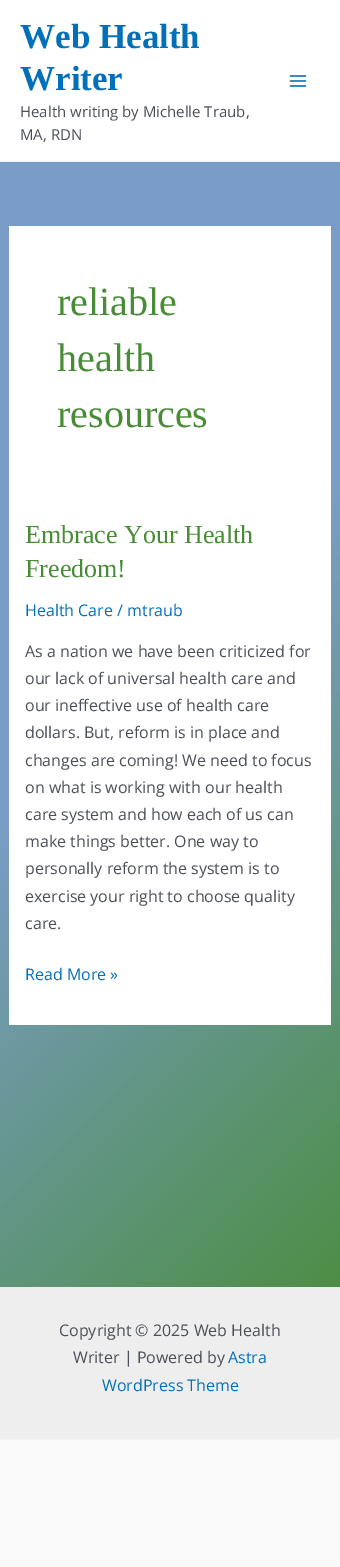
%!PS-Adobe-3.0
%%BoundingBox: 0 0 340 1567
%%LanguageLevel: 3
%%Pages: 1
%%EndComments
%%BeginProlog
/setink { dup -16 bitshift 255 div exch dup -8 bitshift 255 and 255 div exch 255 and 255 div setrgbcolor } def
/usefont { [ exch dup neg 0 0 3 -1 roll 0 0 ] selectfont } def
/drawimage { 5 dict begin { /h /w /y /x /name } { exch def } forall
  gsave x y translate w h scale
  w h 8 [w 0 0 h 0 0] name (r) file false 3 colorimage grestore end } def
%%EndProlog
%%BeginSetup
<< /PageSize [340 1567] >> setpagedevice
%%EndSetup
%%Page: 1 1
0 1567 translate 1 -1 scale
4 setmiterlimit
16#FFFFFF setink
0 0 340 1567 rectfill
gsave 0 162 moveto 340 162 lineto 340 1287 lineto 0 1287 lineto closepath clip newpath
<< /ShadingType 2 /ColorSpace /DeviceRGB /Coords [-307 307 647 1260] /Extend [true true] /Function << /FunctionType 3 /Domain [0 1] /Functions [<< /FunctionType 2 /Domain [0 1] /C0 [0.478 0.616 0.78] /C1 [0.478 0.616 0.78] /N 1 >> << /FunctionType 2 /Domain [0 1] /C0 [0.478 0.616 0.78] /C1 [0.282 0.549 0.216] /N 1 >> << /FunctionType 2 /Domain [0 1] /C0 [0.282 0.549 0.216] /C1 [0.282 0.549 0.216] /N 1 >>] /Bounds [0.43 0.9] /Encode [0 1 0 1 0 1] >> >> shfill grestore
16#F2F5F7 setink
0 161 340 1 rectfill
/LiberationSerif-Bold 35 usefont
16#0170B9 setink
20 48 moveto (Web Health) show
20 90 moveto (Writer) show
/OpenSans-Regular 15 usefont
16#4B4F58 setink
20 117 moveto (Health writing by Michelle Traub,) show
20 140 moveto (MA, RDN) show
(img1.raw) 289 75 18 12 drawimage
16#FFFFFF setink
9 226 322 799 rectfill
/LiberationSerif-Regular 40 usefont
16#488C37 setink
[
    [(reliable) 57 315]
    [(health) 57 371]
    [(resources) 57 427]
] { aload pop moveto show } forall
/LiberationSerif-Regular 26 usefont
25 543 moveto (Embrace Your Health) show
25 577 moveto (Freedom!) show
/OpenSans-Regular 16 usefont
16#0170B9 setink
25 616 moveto (Health Care / mtraub) show
16#4B4F58 setink
[
    [(As a nation we have been criticized for) 25 657]
    [(our lack of universal health care and) 25 684]
    [(our ineffective use of health care) 25 711]
    [(dollars. But, reform is in place and) 25 738]
    [(changes are coming! We need to focus) 25 766]
    [(on what is working with our health) 25 793]
    [(care system and how each of us can) 25 820]
    [(make things better. One way to) 25 847]
    [(personally reform the system is to) 25 874]
    [(exercise your right to choose quality) 25 902]
    [(care.) 25 929]
] { aload pop moveto show } forall
16#0170B9 setink
25 980 moveto (Read More ») show
16#EEEEEE setink
0 1287 340 152 rectfill
16#4B4F58 setink
59 1336 moveto (Copyright © 2025 Web Health) show
73 1363 moveto (Writer | Powered by) show
16#0170B9 setink
228 1363 moveto (Astra) show
102 1391 moveto (WordPress Theme) show
16#F9F9F9 setink
0 1440 340 127 rectfill
16#F2F5F7 setink
0 1439 340 1 rectfill
showpage
%%EOF
